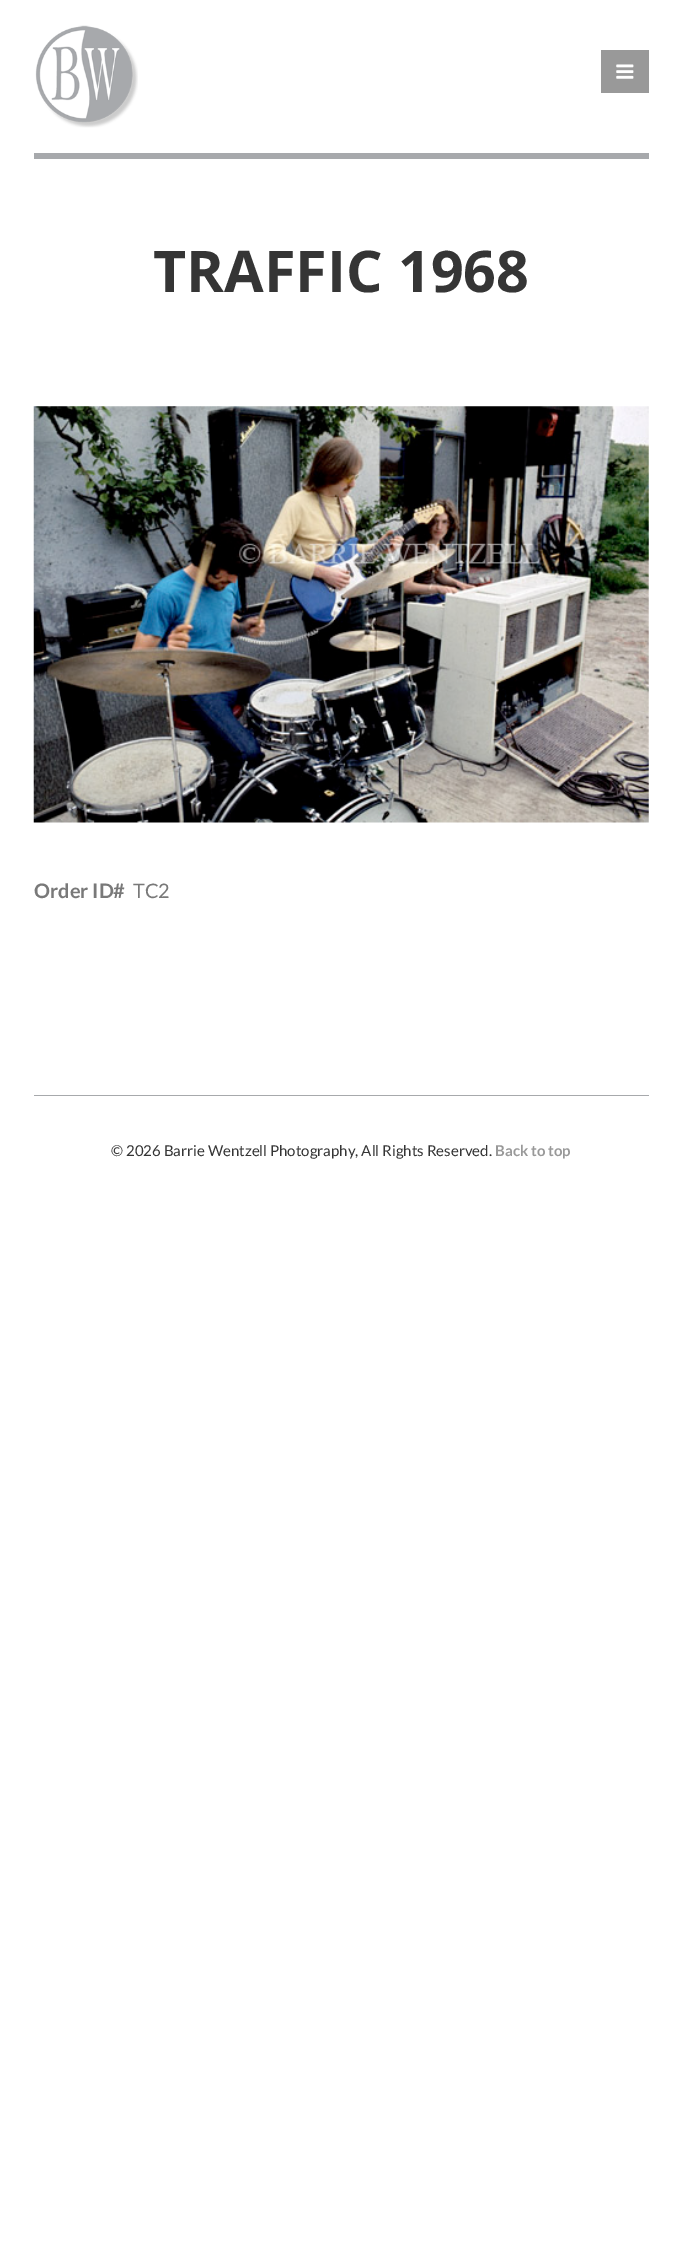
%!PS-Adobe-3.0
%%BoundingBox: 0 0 682 2244
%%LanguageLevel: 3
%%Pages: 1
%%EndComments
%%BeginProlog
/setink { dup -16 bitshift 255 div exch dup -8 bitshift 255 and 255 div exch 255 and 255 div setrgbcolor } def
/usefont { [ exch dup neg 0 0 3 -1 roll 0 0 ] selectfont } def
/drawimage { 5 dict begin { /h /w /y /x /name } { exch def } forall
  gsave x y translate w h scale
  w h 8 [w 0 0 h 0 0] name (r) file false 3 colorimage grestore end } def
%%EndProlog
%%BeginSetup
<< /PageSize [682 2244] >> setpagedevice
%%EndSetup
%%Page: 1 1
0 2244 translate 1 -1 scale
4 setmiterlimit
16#FFFFFF setink
0 0 682 2244 rectfill
(img1.raw) 35 25 103 103 drawimage
16#999999 setink
601 50 48 43 rectfill
(img2.raw) 616 64 18 15 drawimage
16#A7A9AC setink
34 153 615 6 rectfill
/OpenSans-Bold 57.5 usefont
16#353535 setink
153 292 moveto (TRAFFIC 1968) show
(img3.raw) 33 406 616 417 drawimage
/Lato-Bold 20 usefont
16#797979 setink
34 898 moveto (Order ID#) show
/Lato-Regular 20 usefont
133 898 moveto (TC2) show
16#A7A9AC setink
34 1095 615 1 rectfill
/Lato-Regular 15 usefont
16#353535 setink
111 1156 moveto (© 2026 Barrie Wentzell Photography, All Rights Reserved.) show
/Lato-Bold 15 usefont
16#999999 setink
495 1156 moveto (Back to top) show
showpage
%%EOF
